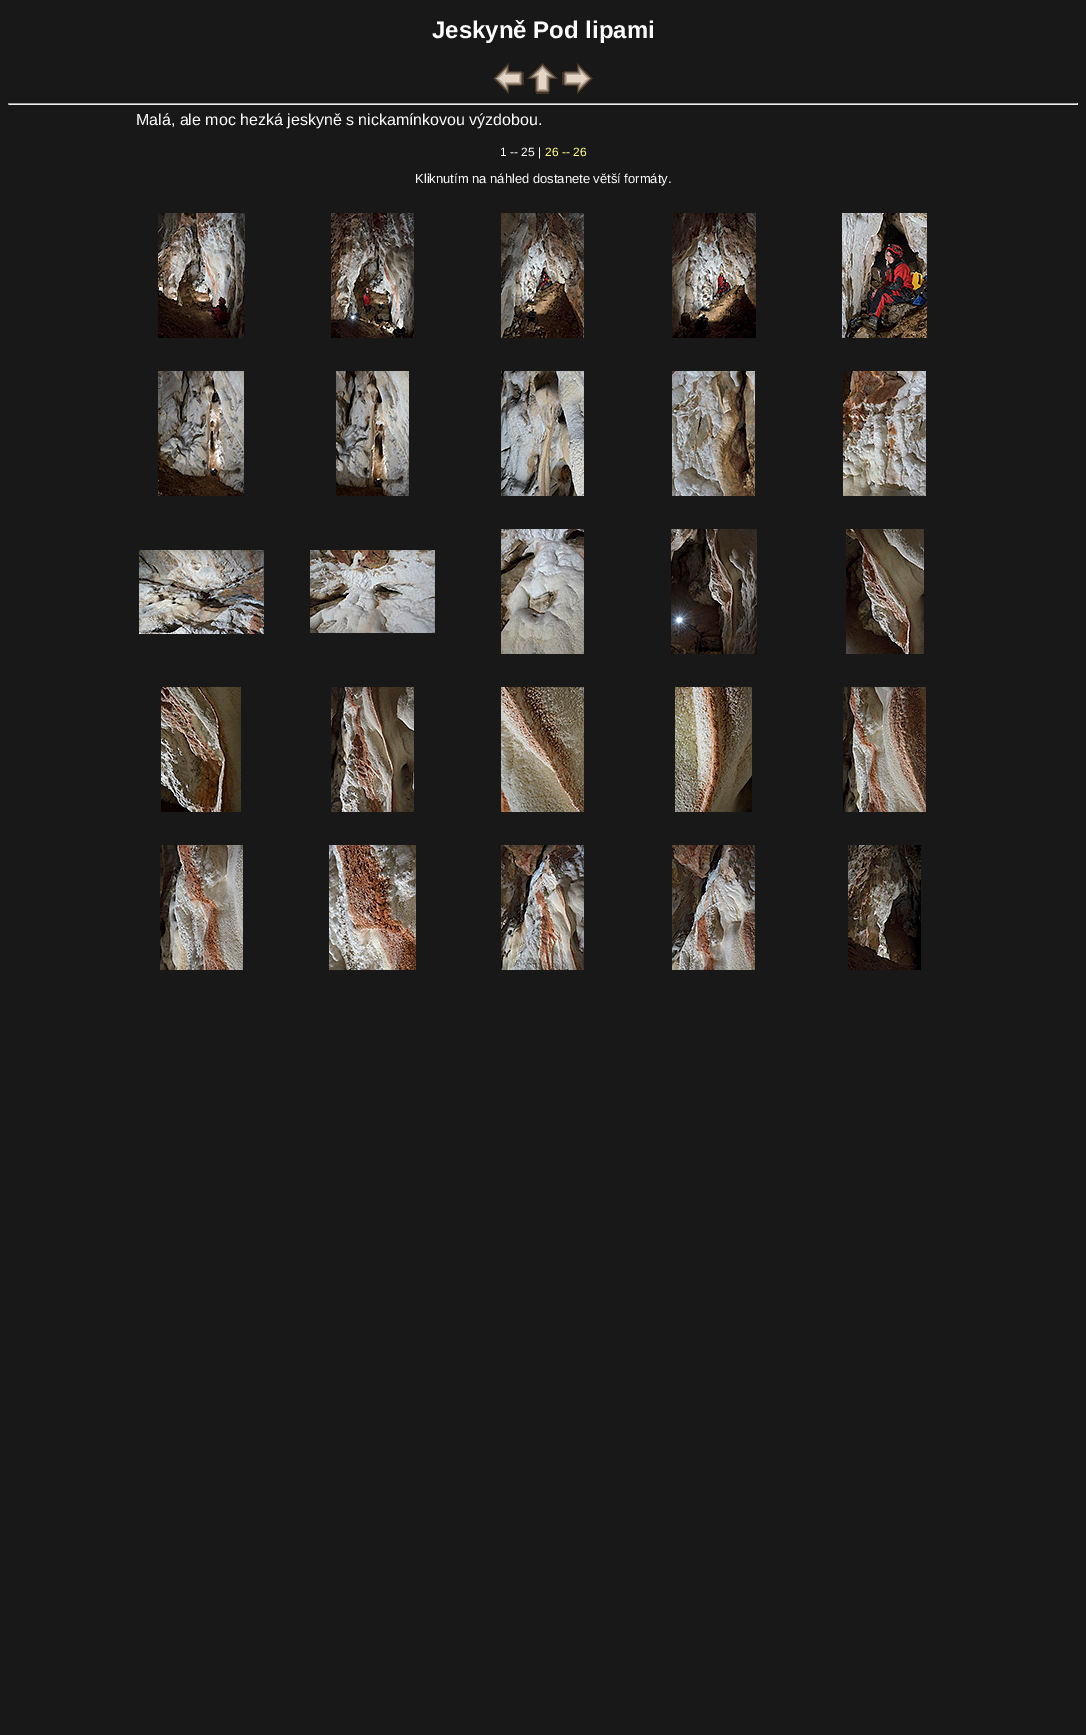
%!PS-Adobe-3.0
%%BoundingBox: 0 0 1086 1735
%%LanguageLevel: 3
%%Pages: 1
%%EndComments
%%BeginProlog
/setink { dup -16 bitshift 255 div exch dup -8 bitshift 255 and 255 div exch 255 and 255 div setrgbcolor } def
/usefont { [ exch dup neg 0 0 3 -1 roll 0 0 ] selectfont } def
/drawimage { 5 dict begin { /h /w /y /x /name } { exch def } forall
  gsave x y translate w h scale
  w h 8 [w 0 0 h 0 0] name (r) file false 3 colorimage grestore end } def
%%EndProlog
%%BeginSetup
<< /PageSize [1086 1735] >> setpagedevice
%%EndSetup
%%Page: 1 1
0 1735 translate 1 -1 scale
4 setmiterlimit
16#181818 setink
0 0 1086 1735 rectfill
/LiberationSans-Bold 24 usefont
16#FFFFFF setink
432 38 moveto (Jeskyně Pod lipami) show
(img1.raw) 493 63 31 31 drawimage
(img2.raw) 527 63 31 31 drawimage
(img3.raw) 562 63 31 31 drawimage
[
    [8 103 1070 1 16#9F9F9F]
    [1077 103 1 2 16#EEEEEE]
    [8 104 1070 1 16#EEEEEE]
    [8 103 1 2 16#9F9F9F]
] { aload pop setink rectfill } forall
/LiberationSans-Regular 16 usefont
16#FFFFFF setink
136 125 moveto (Malá, ale moc hezká jeskyně s nickamínkovou výzdobou.) show
/LiberationSans-Regular 12 usefont
500 156 moveto (1 -- 25 |) show
16#FFFF80 setink
545 156 moveto (26 -- 26) show
/LiberationSans-Regular 13 usefont
16#FFFFFF setink
415 183 moveto (Kliknutím na náhled dostanete větší formáty.) show
(img4.raw) 158 213 87 125 drawimage
(img5.raw) 331 213 83 125 drawimage
(img6.raw) 501 213 83 125 drawimage
(img7.raw) 672 213 84 125 drawimage
(img8.raw) 842 213 85 125 drawimage
(img9.raw) 158 371 86 125 drawimage
(img10.raw) 336 371 73 125 drawimage
(img11.raw) 501 371 83 125 drawimage
(img12.raw) 672 371 83 125 drawimage
(img13.raw) 843 371 83 125 drawimage
(img14.raw) 139 550 125 84 drawimage
(img15.raw) 310 550 125 83 drawimage
(img16.raw) 501 529 83 125 drawimage
(img17.raw) 671 529 86 125 drawimage
(img18.raw) 846 529 78 125 drawimage
(img19.raw) 161 687 80 125 drawimage
(img20.raw) 331 687 83 125 drawimage
(img21.raw) 501 687 83 125 drawimage
(img22.raw) 675 687 77 125 drawimage
(img23.raw) 843 687 83 125 drawimage
(img24.raw) 160 845 83 125 drawimage
(img25.raw) 329 845 87 125 drawimage
(img26.raw) 501 845 83 125 drawimage
(img27.raw) 672 845 83 125 drawimage
(img28.raw) 848 845 73 125 drawimage
showpage
%%EOF
